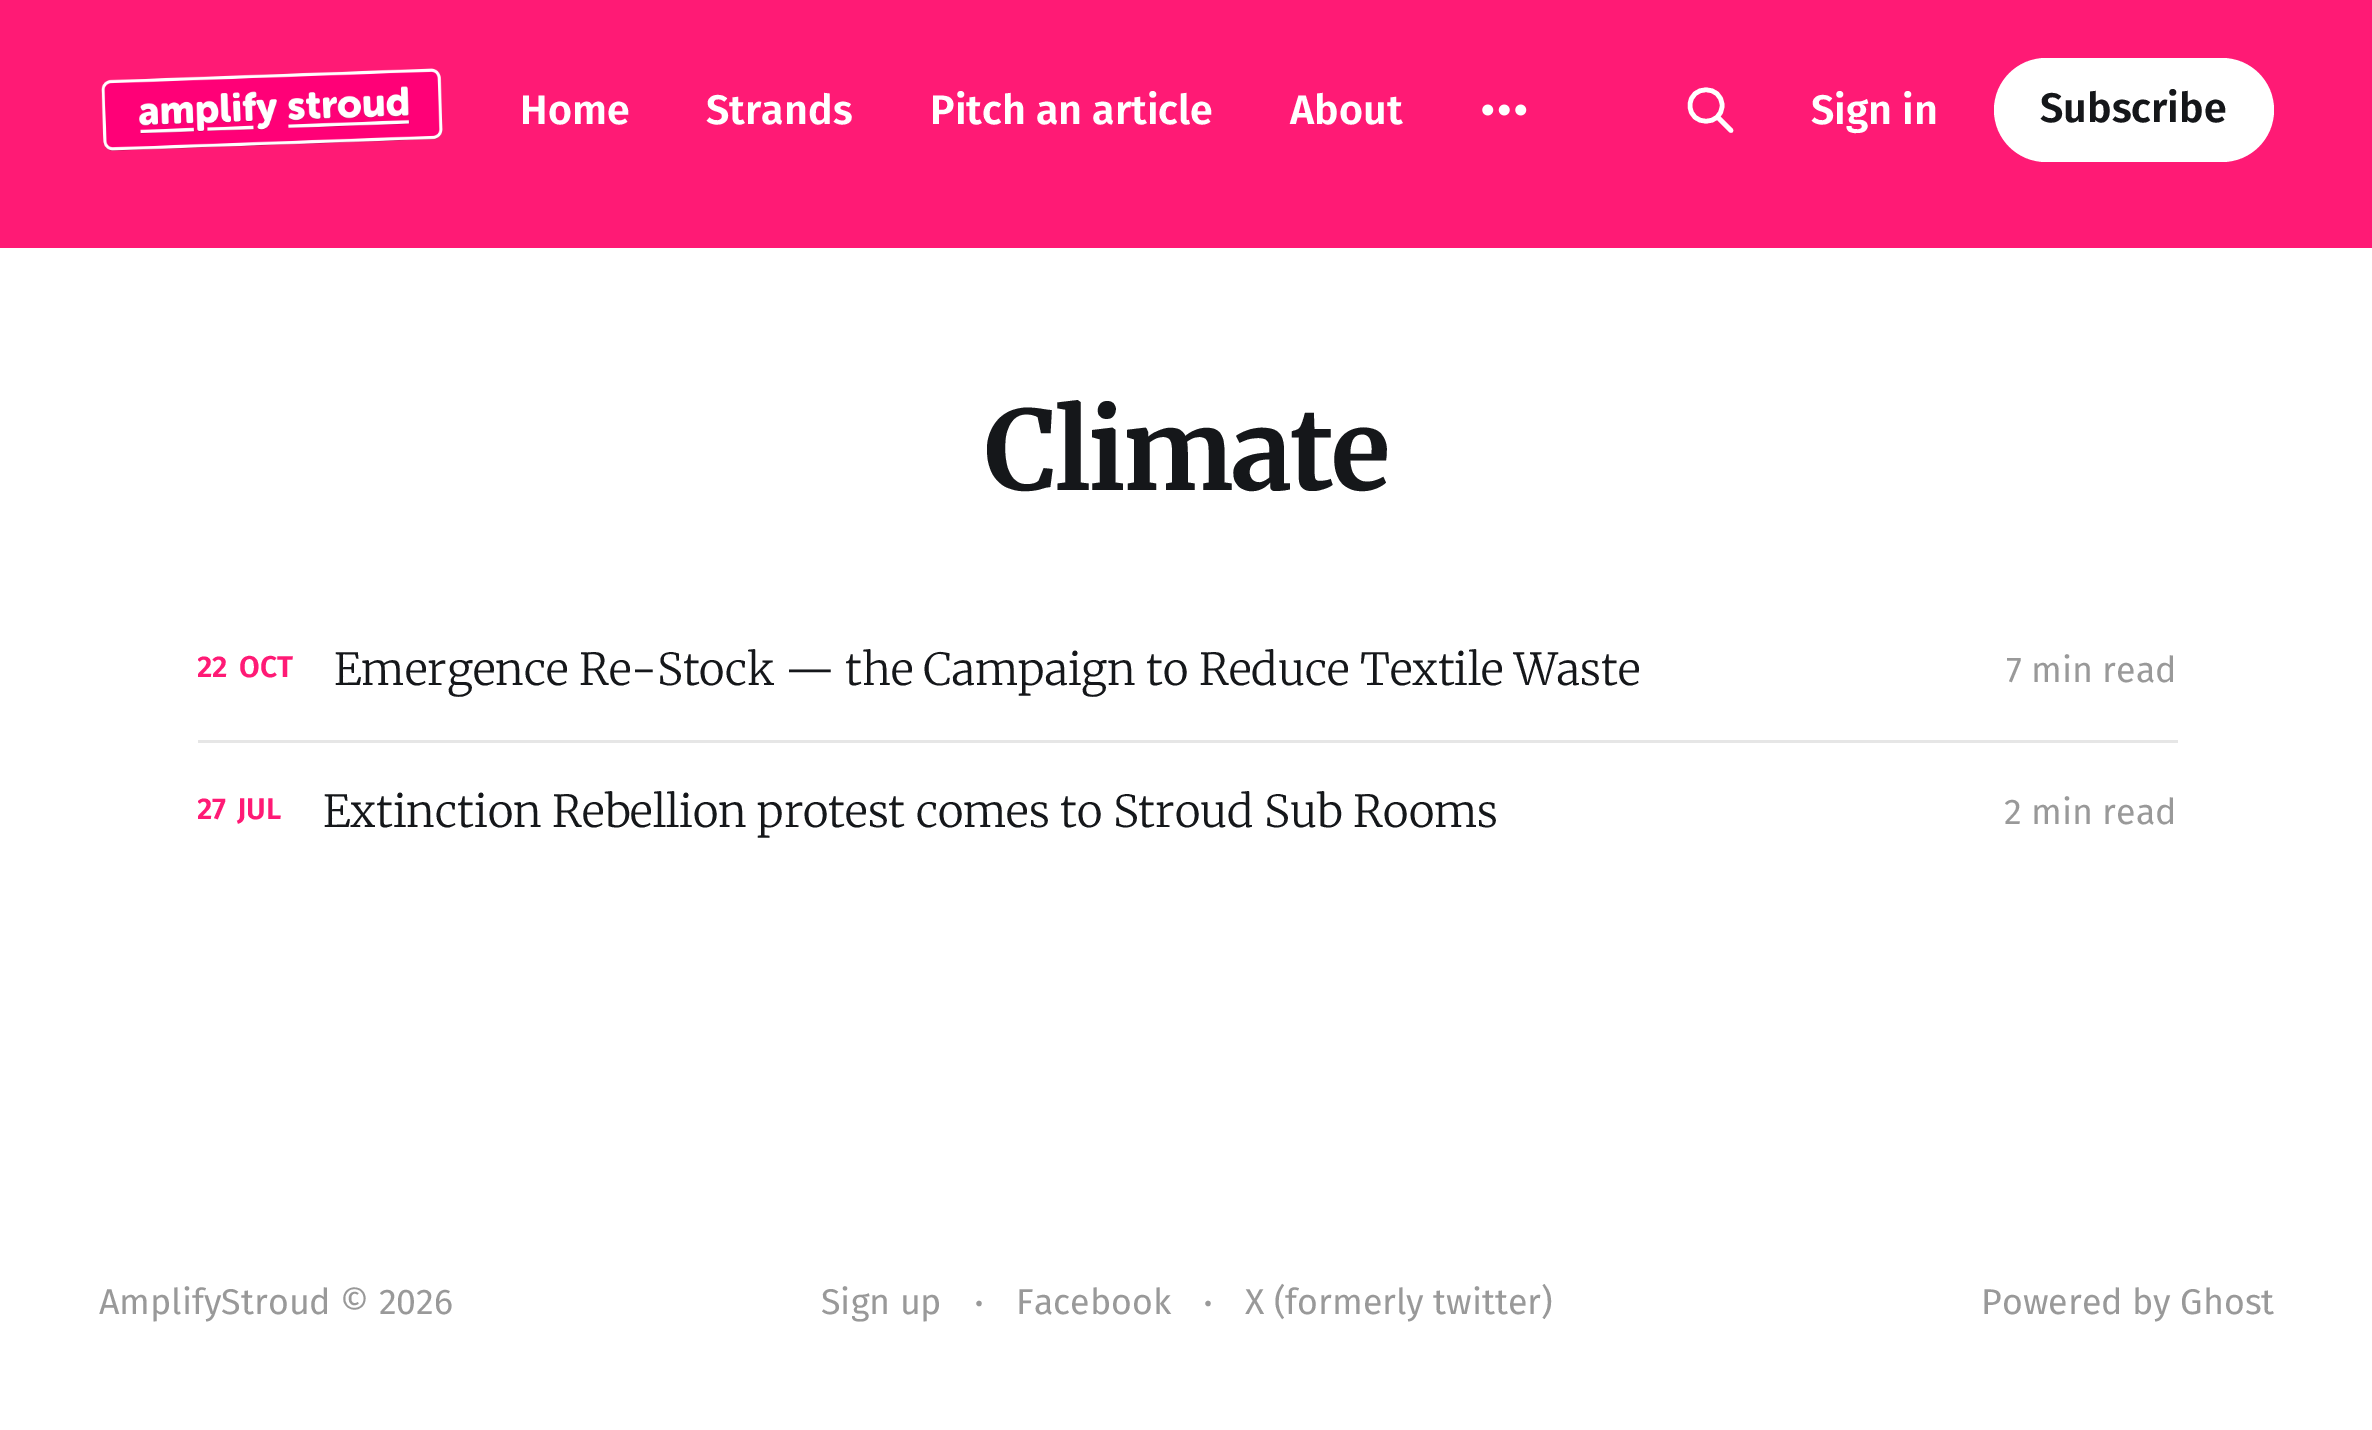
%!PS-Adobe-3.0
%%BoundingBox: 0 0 2372 1430
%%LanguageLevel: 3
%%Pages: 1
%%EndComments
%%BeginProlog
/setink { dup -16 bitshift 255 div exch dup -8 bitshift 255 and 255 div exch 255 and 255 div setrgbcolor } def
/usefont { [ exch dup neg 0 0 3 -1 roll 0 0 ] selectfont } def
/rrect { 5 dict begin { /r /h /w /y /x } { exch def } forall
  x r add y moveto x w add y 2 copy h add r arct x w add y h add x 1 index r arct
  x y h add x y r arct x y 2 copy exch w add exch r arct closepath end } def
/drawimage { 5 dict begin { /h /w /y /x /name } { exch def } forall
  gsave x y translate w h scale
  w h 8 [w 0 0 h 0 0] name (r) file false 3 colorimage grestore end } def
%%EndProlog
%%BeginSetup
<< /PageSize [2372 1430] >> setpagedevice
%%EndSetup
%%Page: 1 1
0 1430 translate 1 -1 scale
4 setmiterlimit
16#FFFFFF setink
0 0 2372 1430 rectfill
16#FF1A75 setink
0 0 2372 248 rectfill
(img1.raw) 101 68 342 83 drawimage
/FiraSans-SemiBold 41.25 usefont
16#FFFFFF setink
[
    [(Home) 520 124]
    [(Strands) 706 124]
    [(Pitch an article) 930 124]
    [(About) 1290 124]
] { aload pop moveto show } forall
(img2.raw) 1482 104 45 12 drawimage
4.6 setlinewidth
1 setlinecap
1 setlinejoin
1731 130.5 moveto 1717.5 117 lineto 1722 105.5 moveto 1722 126.5 1690 126.5 1690 105.5 curveto 1690 84.5 1722 84.5 1722 105.5 curveto closepath stroke
1811 124 moveto (Sign in) show
1994 58 280 104 52 rrect fill
16#15171A setink
2040 122 moveto (Subscribe) show
/Merriweather-Light 110 usefont
985 490 moveto -2.75 0 (Climate) ashow
gsave
198 600 1980 140 rectclip
/FiraSans-SemiBold 30 usefont
16#FF1A75 setink
197 677 moveto (22) show
grestore
/FiraSans-SemiBold 30 usefont
16#FF1A75 setink
239 677 moveto (OCT) show
/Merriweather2-Light 44 usefont
16#15171A setink
334 685 moveto (Emergence Re-Stock — the Campaign to Reduce Textile Waste) show
/FiraSans-Regular 35.75 usefont
16#999999 setink
2006 682 moveto (7 min read) show
16#E6E6E6 setink
198 740 1980 3 rectfill
gsave
198 743 1980 140 rectclip
/FiraSans-SemiBold 30 usefont
16#FF1A75 setink
197 819 moveto (27) show
grestore
/FiraSans-SemiBold 30 usefont
16#FF1A75 setink
237 819 moveto (JUL) show
/Merriweather2-Light 44 usefont
16#15171A setink
323 827 moveto (Extinction Rebellion protest comes to Stroud Sub Rooms) show
/FiraSans-Regular 35.75 usefont
16#999999 setink
[
    [(2 min read) 2004 824]
    [(AmplifyStroud © 2026) 99 1314]
    [(Sign up) 821 1314]
] { aload pop moveto show } forall
/FiraSans-Regular 25 usefont
975 1312 moveto (•) show
/FiraSans-Regular 35.75 usefont
1016 1314 moveto (Facebook) show
/FiraSans-Regular 25 usefont
1204 1312 moveto (•) show
/FiraSans-Regular 35.75 usefont
1245 1314 moveto (X \(formerly twitter\)) show
1981 1314 moveto (Powered by Ghost) show
showpage
%%EOF
